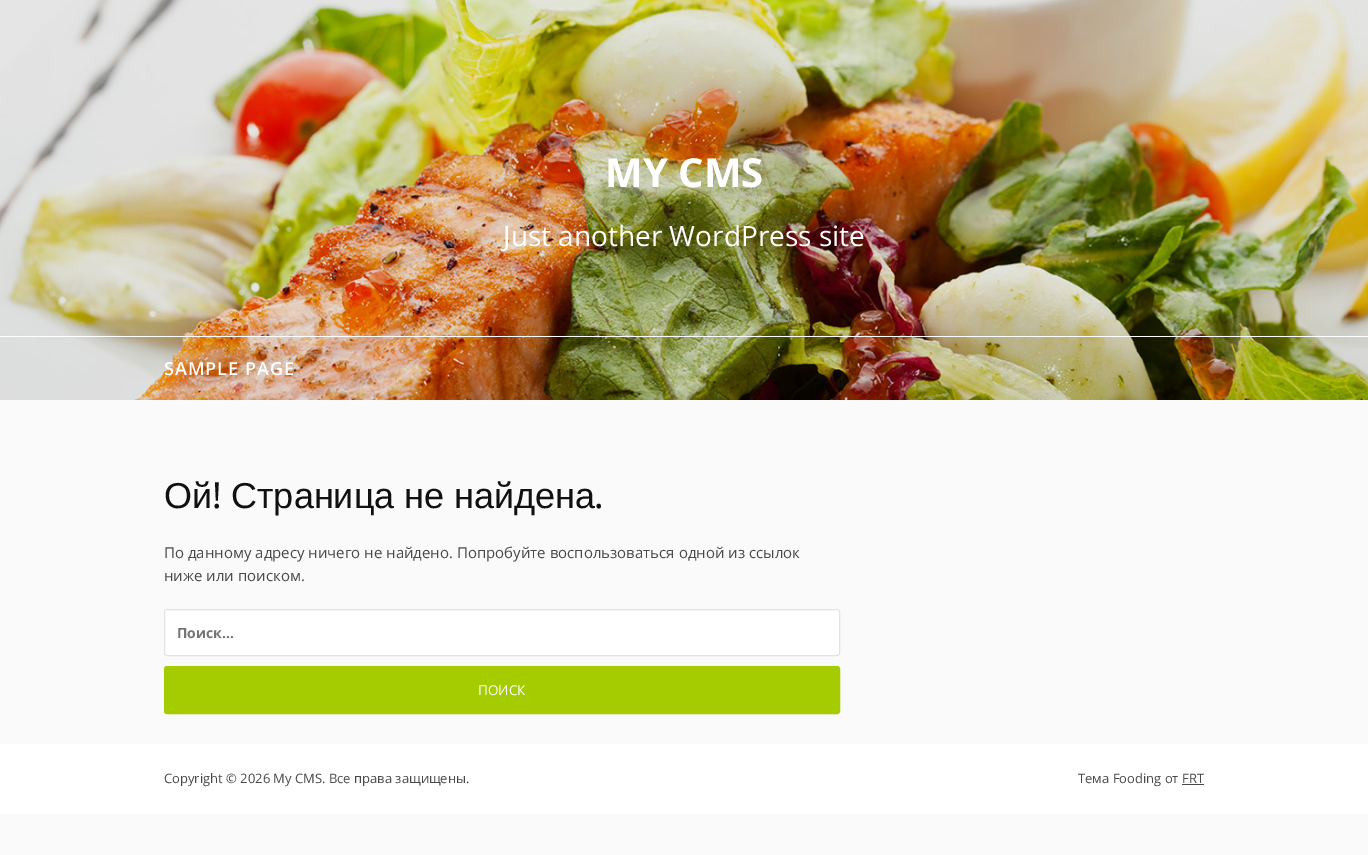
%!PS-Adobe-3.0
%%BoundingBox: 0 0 1368 855
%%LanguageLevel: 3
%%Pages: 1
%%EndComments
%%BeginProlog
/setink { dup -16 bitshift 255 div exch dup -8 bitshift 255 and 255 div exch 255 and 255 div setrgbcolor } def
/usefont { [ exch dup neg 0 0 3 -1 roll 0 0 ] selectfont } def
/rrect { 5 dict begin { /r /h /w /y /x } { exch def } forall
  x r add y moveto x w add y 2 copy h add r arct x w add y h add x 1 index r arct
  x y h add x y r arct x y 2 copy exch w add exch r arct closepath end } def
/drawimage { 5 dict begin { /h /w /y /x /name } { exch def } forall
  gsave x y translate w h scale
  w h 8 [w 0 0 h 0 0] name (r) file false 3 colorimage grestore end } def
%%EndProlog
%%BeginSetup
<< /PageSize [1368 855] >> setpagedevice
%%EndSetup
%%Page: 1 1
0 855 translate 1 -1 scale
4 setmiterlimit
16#FAFAFA setink
0 0 1368 855 rectfill
(img1.raw) 0 0 1368 400 drawimage
/OpenSans-Bold 40 usefont
16#FFFFFF setink
605 187 moveto (MY CMS) show
/OpenSans-Regular 28 usefont
503 246 moveto (Just another WordPress site) show
0 336 1368 1 rectfill
/OpenSans-SemiBold 18 usefont
164 375 moveto 1 0 (SAMPLE PAGE) ashow
/LiberationSans-Regular 36 usefont
16#111111 setink
164 508 moveto (Ой) show
/DroidSans-Regular 36 usefont
212 508 moveto (!) show
/LiberationSans-Regular 36 usefont
231 508 moveto (Страница не найдена) show
/DroidSans-Regular 36 usefont
594 508 moveto (.) show
/OpenSans-Regular 15 usefont
16#494949 setink
164 558 moveto (По данному адресу ничего не найдено. Попробуйте воспользоваться одной из ссылок) show
164 581 moveto (ниже или поиском.) show
16#FFFFFF setink
164.5 609.5 675 46 2.5 rrect gsave fill grestore
16#E3E3E3 setink
stroke
/OpenSans-Bold 14 usefont
16#757575 setink
177 638 moveto (Поиск…) show
16#A4CC00 setink
164.5 666.5 675 47 2.5 rrect gsave fill grestore
stroke
/OpenSans-Regular 13.5 usefont
16#FFFFFF setink
478 695 moveto (ПОИСК) show
0 744 1368 70 rectfill
/OpenSans-Regular 13 usefont
16#494949 setink
164 783 moveto (Copyright © 2026 My CMS. Все права защищены.) show
1078 783 moveto (Тема Fooding от FRT) show
1182 784 22 1 rectfill
showpage
%%EOF
